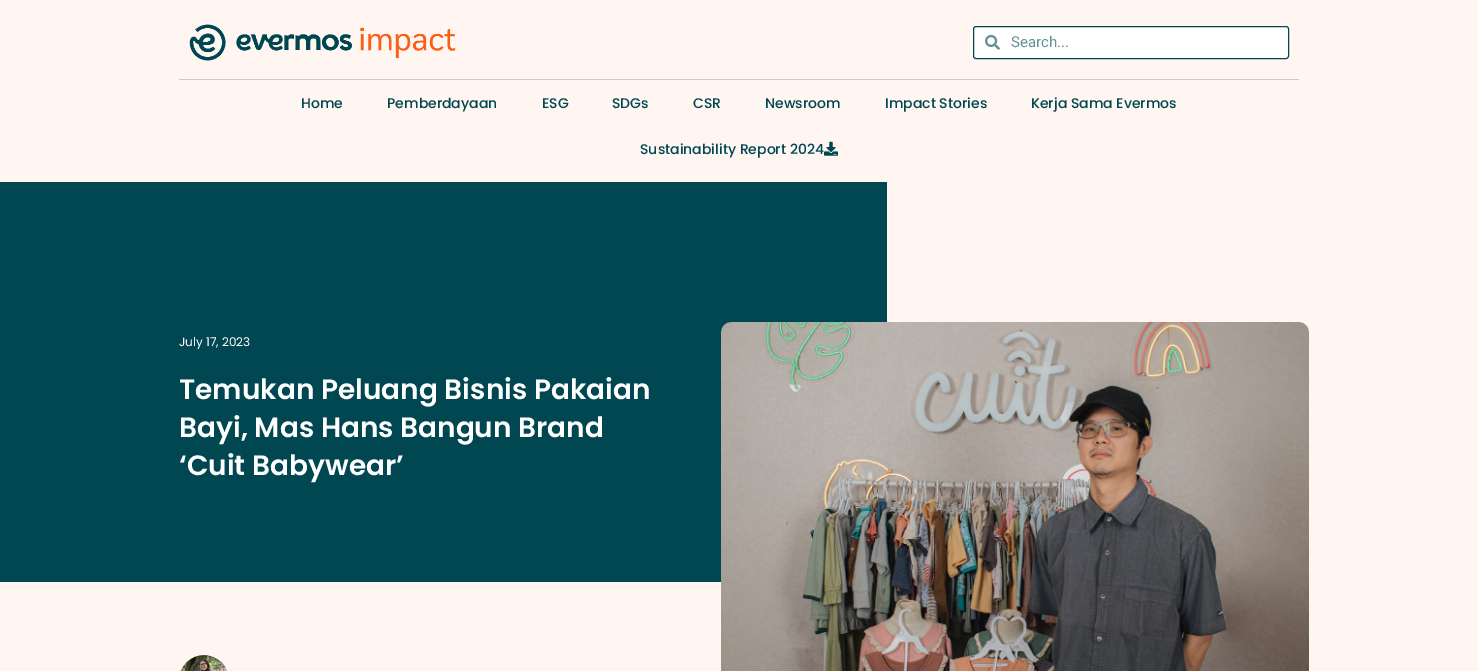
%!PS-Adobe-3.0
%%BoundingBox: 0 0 1478 671
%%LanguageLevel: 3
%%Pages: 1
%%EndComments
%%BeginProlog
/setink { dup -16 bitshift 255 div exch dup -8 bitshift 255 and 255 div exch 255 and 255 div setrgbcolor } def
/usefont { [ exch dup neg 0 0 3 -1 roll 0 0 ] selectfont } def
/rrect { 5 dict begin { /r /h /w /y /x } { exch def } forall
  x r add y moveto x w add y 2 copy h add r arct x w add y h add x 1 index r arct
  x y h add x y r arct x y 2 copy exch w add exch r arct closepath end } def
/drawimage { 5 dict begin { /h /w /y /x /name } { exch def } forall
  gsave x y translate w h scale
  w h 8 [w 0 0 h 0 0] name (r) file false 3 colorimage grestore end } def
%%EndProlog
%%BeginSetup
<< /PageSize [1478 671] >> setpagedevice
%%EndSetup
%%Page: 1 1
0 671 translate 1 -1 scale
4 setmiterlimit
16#FFF6F2 setink
0 0 1478 671 rectfill
(img1.raw) 189 24 267 37 drawimage
16#FFFFFF setink
973.5 26.5 315 32 2.5 rrect gsave fill grestore
16#004751 setink
stroke
(img2.raw) 985 34 15 16 drawimage
/Roboto-Regular 15 usefont
16#669197 setink
1011 47 moveto (Search...) show
16#CCCCCC setink
179 79 1120 1 rectfill
/Poppins-Medium 14 usefont
16#004751 setink
[
    [(Home) 301 108]
    [(Pemberdayaan) 387 108]
    [(ESG) 542 108]
    [(SDGs) 612 108]
    [(CSR) 693 108]
    [(Newsroom) 765 108]
    [(Impact Stories) 885 108]
    [(Kerja Sama Evermos) 1031 108]
    [(Sustainability Report 2024) 640 154]
] { aload pop moveto show } forall
(img3.raw) 824 141 14 15 drawimage
0 182 887 400 rectfill
/Poppins-Regular 12 usefont
16#FFFFFF setink
179 346 moveto (July 17, 2023) show
/Poppins-SemiBold 28 usefont
[
    [(Temukan Peluang Bisnis Pakaian) 179 399]
    [(Bayi, Mas Hans Bangun Brand) 179 437]
    [(‘Cuit Babywear’) 179 475]
] { aload pop moveto show } forall
(img4.raw) 180 655 48 16 drawimage
(img5.raw) 721 322 588 349 drawimage
showpage
%%EOF
